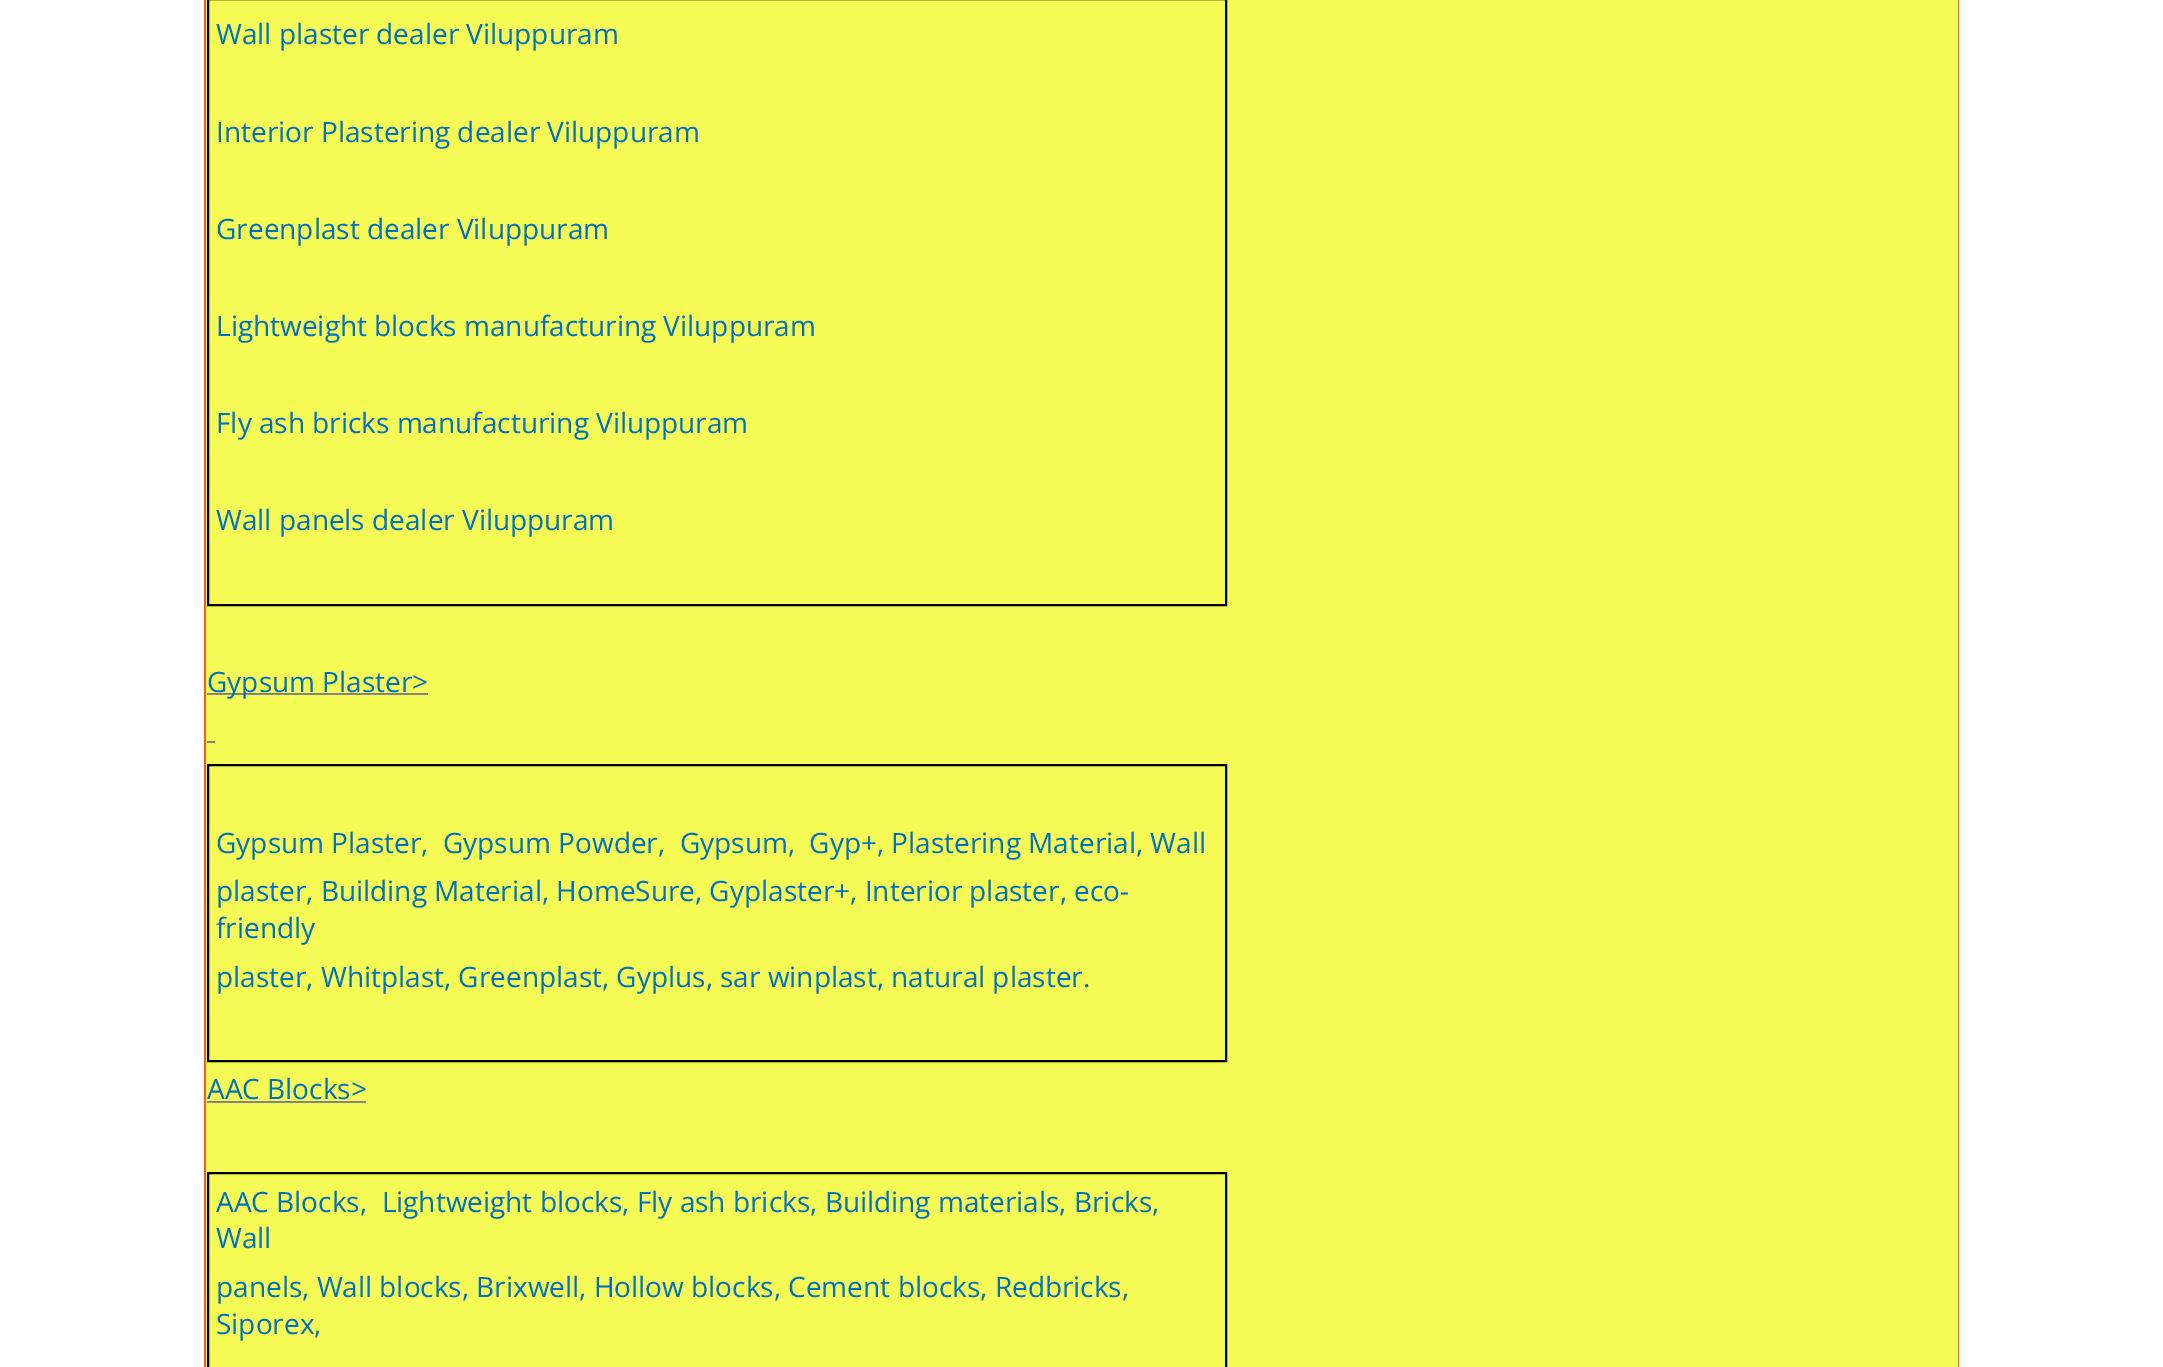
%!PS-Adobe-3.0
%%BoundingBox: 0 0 2163 1367
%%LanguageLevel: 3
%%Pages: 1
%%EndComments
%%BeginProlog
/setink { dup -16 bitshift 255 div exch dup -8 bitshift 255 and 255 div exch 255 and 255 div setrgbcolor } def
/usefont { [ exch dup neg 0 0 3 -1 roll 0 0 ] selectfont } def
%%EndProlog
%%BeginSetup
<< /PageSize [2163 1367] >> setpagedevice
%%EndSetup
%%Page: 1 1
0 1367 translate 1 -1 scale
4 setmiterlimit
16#FFFFFF setink
0 0 2163 1367 rectfill
16#FB5F03 setink
204 0 1755 1367 rectfill
16#F5FB54 setink
206 0 1752 1367 rectfill
16#000000 setink
2 setlinewidth
208 -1 1018 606 rectstroke
/OpenSans-Regular 28 usefont
16#0070C0 setink
[
    [(Wall plaster dealer Viluppuram) 216 44]
    [(Interior Plastering dealer Viluppuram) 216 142]
    [(Greenplast dealer Viluppuram) 216 239]
    [(Lightweight blocks manufacturing Viluppuram) 216 336]
    [(Fly ash bricks manufacturing Viluppuram) 216 433]
    [(Wall panels dealer Viluppuram) 216 530]
] { aload pop moveto show } forall
16#848484 setink
207 693 221 2 rectfill
16#0070C0 setink
207 692 moveto (Gypsum Plaster>) show
16#848484 setink
207 741 8 2 rectfill
16#000000 setink
208 765 1018 296 rectstroke
16#0070C0 setink
[
    [(Gypsum Plaster,  Gypsum Powder,  Gypsum,  Gyp+, Plastering Material, Wall) 216 853]
    [(plaster, Building Material, HomeSure, Gyplaster+, Interior plaster, eco-) 216 901]
    [(friendly) 216 938]
    [(plaster, Whitplast, Greenplast, Gyplus, sar winplast, natural plaster.) 216 987]
    [(AAC Blocks>) 207 1099]
] { aload pop moveto show } forall
16#848484 setink
207 1101 159 2 rectfill
16#000000 setink
208 1173 1018 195 rectstroke
16#0070C0 setink
[
    [(AAC Blocks,  Lightweight blocks, Fly ash bricks, Building materials, Bricks,) 216 1212]
    [(Wall) 216 1248]
    [(panels, Wall blocks, Brixwell, Hollow blocks, Cement blocks, Redbricks,) 216 1297]
    [(Siporex,) 216 1334]
] { aload pop moveto show } forall
showpage
%%EOF
